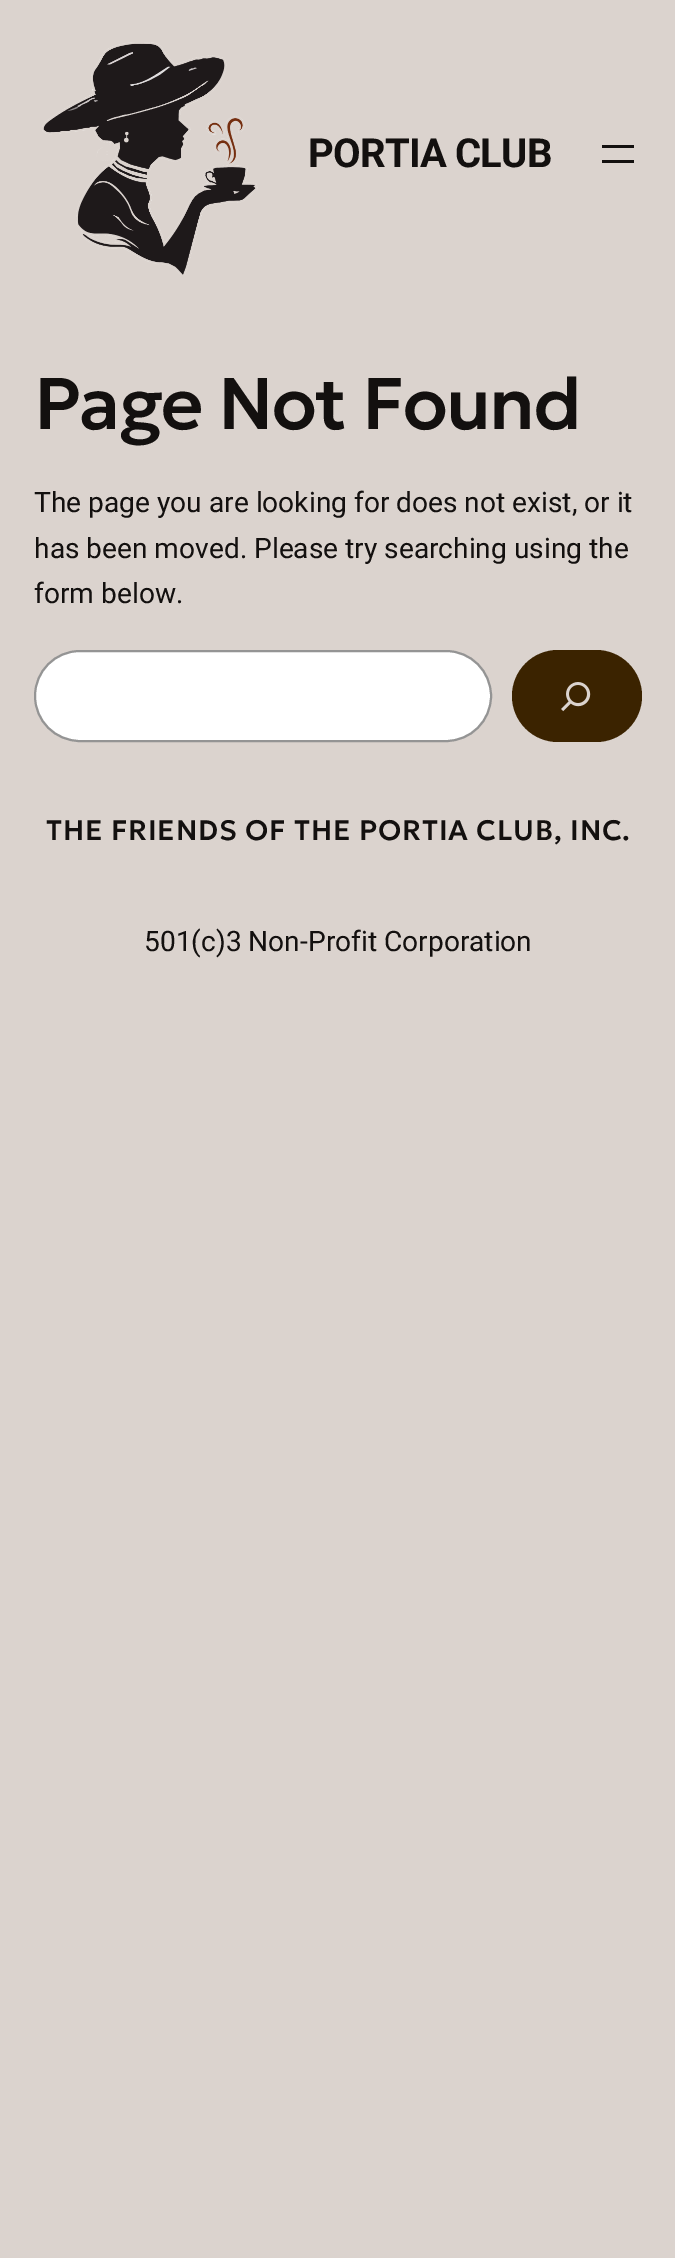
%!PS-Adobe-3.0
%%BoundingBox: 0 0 675 2258
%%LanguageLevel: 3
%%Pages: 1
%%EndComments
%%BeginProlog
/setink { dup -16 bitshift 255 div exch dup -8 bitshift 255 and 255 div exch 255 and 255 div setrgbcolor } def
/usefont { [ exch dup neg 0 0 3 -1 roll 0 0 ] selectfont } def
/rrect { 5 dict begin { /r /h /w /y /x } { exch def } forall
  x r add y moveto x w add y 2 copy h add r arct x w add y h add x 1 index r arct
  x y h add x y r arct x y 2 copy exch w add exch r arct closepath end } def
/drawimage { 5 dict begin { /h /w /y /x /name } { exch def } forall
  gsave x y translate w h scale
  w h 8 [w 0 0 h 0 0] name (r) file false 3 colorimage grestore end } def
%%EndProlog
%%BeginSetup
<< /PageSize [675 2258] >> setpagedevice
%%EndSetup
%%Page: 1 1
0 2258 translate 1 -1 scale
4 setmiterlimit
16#DBD3CE setink
0 0 675 2258 rectfill
(img1.raw) 42 42 216 233 drawimage
/Roboto-Bold 40 usefont
16#13100F setink
308 167 moveto -0.75 0 (PORTIA CLUB) ashow
602 145 32 3 rectfill
602 160 32 3 rectfill
/Geologica-Thin 73 usefont
34 429 moveto -1.5 0 (Page Not Found) ashow
/Roboto-Regular 28.15 usefont
[
    [(The page you are looking for does not exist, or it) 34 512]
    [(has been moved. Please try searching using the) 34 558]
    [(form below.) 34 603]
] { aload pop moveto show } forall
16#FFFFFF setink
35 651 456 90 45 rrect gsave fill grestore
16#949494 setink
2 setlinewidth
stroke
16#3B2300 setink
512 650 130 92 46 rrect fill
(img2.raw) 561 682 30 30 drawimage
/Geologica-Thin 28.15 usefont
16#13100F setink
46 840 moveto 0.85 0 (THE FRIENDS OF THE PORTIA CLUB, INC.) ashow
/Roboto-Regular 28.15 usefont
144 951 moveto (501\(c\)3 Non-Profit Corporation) show
showpage
%%EOF
